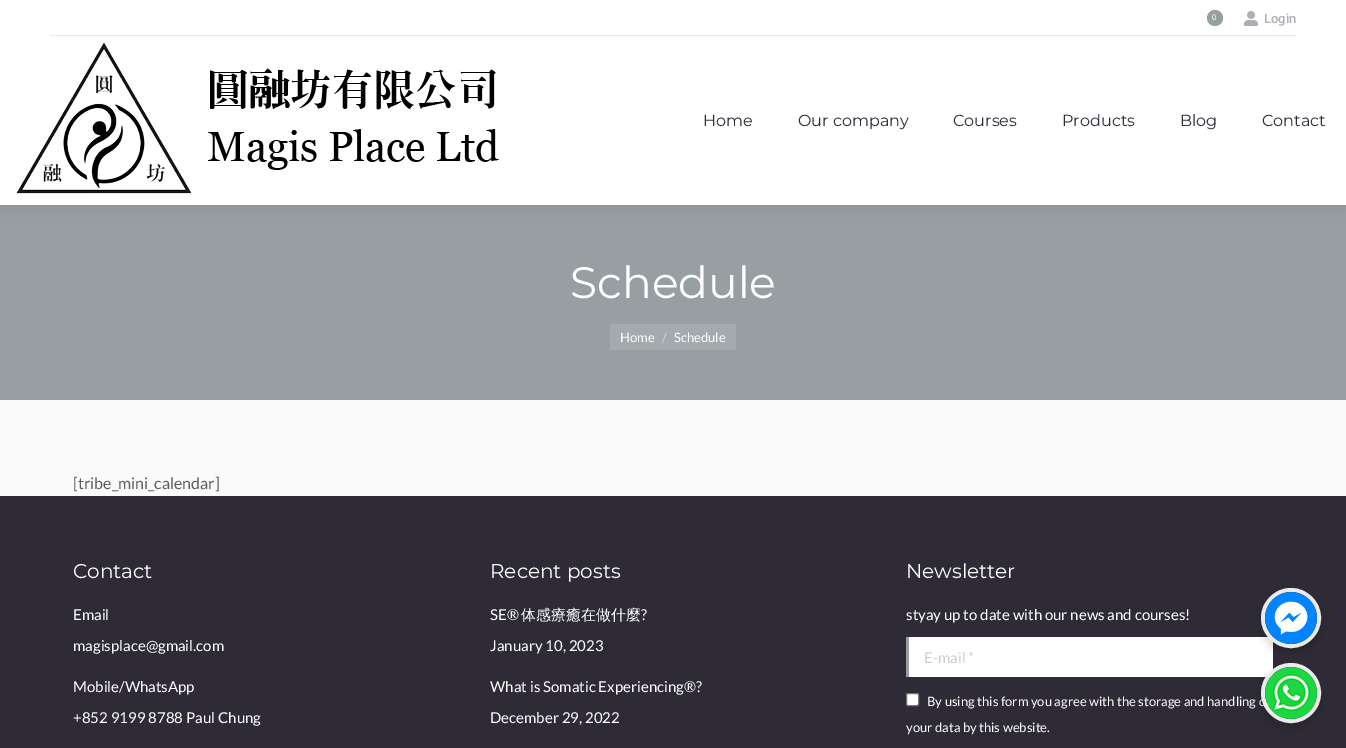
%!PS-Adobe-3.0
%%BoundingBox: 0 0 1346 748
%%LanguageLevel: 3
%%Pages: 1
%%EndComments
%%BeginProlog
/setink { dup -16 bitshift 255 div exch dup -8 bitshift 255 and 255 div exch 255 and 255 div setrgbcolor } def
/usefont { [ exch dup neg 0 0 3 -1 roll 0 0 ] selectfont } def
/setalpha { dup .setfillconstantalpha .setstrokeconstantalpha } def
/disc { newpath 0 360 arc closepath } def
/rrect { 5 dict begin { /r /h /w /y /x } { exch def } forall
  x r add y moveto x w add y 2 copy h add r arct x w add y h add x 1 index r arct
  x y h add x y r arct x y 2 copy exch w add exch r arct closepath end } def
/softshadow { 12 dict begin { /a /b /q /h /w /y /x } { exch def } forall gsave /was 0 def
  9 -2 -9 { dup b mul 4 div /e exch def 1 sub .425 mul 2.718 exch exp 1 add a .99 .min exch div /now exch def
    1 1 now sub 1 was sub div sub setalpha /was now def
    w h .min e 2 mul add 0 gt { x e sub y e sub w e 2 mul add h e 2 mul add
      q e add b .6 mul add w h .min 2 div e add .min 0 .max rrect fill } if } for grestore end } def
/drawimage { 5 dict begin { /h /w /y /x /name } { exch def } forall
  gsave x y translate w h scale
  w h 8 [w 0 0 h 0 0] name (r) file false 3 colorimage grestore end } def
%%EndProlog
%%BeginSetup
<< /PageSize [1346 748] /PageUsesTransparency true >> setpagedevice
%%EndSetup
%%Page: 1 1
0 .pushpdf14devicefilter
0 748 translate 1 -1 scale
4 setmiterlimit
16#FBFAFA setink
0 0 1346 748 rectfill
16#979FA3 setink
0 205 1346 195 rectfill
16#000000 setink
-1 -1 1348 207 0 7.5 0.07 softshadow
16#FFFFFF setink
0 0 1346 205 rectfill
16#979FA3 setink
1215 18 8 disc fill
/LiberationSans-Regular 8 usefont
16#FFFFFF setink
1212 20 moveto (0) show
(img1.raw) 1244 11 14 15 drawimage
/Roboto-Medium 13 usefont
16#AEAFB5 setink
1264 23 moveto (Login) show
16#E7E7E7 setink
50 35 1246 1 rectfill
(img2.raw) 16 42 483 152 drawimage
/Montserrat-Regular 16 usefont
16#2E2B36 setink
[
    [(Home) 703 126]
    [(Our company) 798 126]
    [(Courses) 953 126]
    [(Products) 1062 126]
    [(Blog) 1180 126]
    [(Contact) 1262 126]
] { aload pop moveto show } forall
/Montserrat-Regular 44 usefont
16#FFFFFF setink
570 298 moveto (Schedule) show
16#A3ABAE setink
610 324 126 26 rectfill
/Lato-Regular 13 usefont
16#FFFFFF setink
620 342 moveto (Home) show
16#D1D5D7 setink
662 342 moveto (/) show
16#FFFFFF setink
674 342 moveto (Schedule) show
/Lato-Regular 16 usefont
16#5E5E5E setink
73 489 moveto ([tribe_mini_calendar]) show
16#2E2B36 setink
0 496 1346 252 rectfill
/Montserrat-Regular 20 usefont
16#FFFFFF setink
73 578 moveto (Contact) show
/Lato-Regular 15 usefont
[
    [(Email) 73 620]
    [(magisplace@gmail.com) 73 651]
    [(Mobile/WhatsApp) 73 692]
    [(+852 9199 8788 Paul Chung) 73 723]
] { aload pop moveto show } forall
/Montserrat-Regular 20 usefont
490 578 moveto (Recent posts) show
/Lato-Regular 15 usefont
490 620 moveto (SE®) show
/WenQuanYiZenHei-Medium 15 usefont
521 620 moveto (体感療癒在做什麼) show
/Lato-Regular 15 usefont
[
    [(?) 641 620]
    [(January 10, 2023) 490 651]
    [(What is Somatic Experiencing®?) 490 692]
    [(December 29, 2022) 490 723]
] { aload pop moveto show } forall
/Montserrat-Regular 20 usefont
906 578 moveto (Newsletter) show
/Lato-Regular 15 usefont
906 620 moveto (styay up to date with our news and courses!) show
909 637 364 40 rectfill
16#979FA3 setink
906 637 3 40 rectfill
16#CBCFD1 setink
924 663 moveto (E-mail *) show
16#FFFFFF setink
906.5 693.5 12 12 1.5 rrect gsave fill grestore
16#767676 setink
stroke
/Lato-Regular 13 usefont
16#FFFFFF setink
927 706 moveto (By using this form you agree with the storage and handling o) show
906 732 moveto (your data by this website.) show
16#000000 setink
1261 668 60 60 30 4 0.15 softshadow
16#EBEBEB setink
4 setlinewidth
1291 693 28 disc stroke
16#000000 setink
1261 593 60 60 30 4 0.15 softshadow
16#EBEBEB setink
1291 618 28 disc stroke
(img3.raw) 1265 592 52 52 drawimage
(img4.raw) 1265 667 52 52 drawimage
.poppdf14devicefilter showpage
%%EOF
